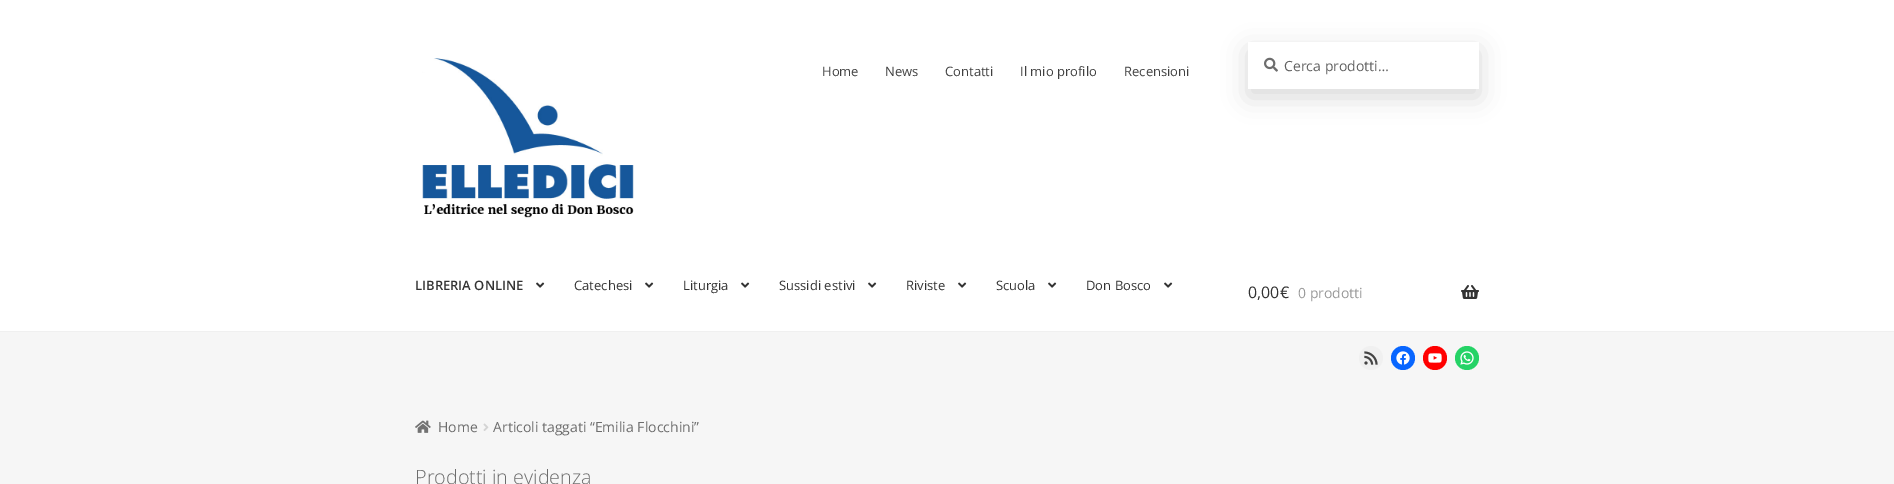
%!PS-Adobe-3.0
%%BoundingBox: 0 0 1894 484
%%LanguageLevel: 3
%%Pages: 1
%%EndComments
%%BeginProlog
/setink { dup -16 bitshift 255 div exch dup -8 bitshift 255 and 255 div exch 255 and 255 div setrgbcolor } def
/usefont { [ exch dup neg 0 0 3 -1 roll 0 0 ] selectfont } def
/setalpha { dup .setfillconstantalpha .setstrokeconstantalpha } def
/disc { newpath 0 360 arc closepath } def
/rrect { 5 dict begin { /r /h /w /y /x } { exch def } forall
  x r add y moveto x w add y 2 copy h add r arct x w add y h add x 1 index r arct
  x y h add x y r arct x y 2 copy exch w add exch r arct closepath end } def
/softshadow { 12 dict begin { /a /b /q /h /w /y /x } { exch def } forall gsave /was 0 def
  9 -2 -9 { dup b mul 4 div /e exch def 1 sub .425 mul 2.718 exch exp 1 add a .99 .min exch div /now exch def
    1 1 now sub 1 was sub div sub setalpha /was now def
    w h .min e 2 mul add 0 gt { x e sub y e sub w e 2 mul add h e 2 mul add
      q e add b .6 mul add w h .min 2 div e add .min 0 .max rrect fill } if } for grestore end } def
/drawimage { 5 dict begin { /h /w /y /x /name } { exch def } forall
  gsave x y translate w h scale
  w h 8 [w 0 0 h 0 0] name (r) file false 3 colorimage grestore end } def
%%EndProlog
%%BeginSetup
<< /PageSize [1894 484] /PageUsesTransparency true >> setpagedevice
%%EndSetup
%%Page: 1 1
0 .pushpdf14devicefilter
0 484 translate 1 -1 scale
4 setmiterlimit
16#F6F6F6 setink
0 0 1894 484 rectfill
16#FFFFFF setink
0 0 1894 331 rectfill
16#F0F0F0 setink
0 331 1894 1 rectfill
(img1.raw) 422 58 212 160 drawimage
/OpenSans-Regular 13 usefont
16#404040 setink
[
    [(Home) 822 76]
    [(News) 885 76]
    [(Contatti) 945 76]
    [(Il mio profilo) 1020 76]
    [(Recensioni) 1124 76]
] { aload pop moveto show } forall
gsave
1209 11 moveto 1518 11 lineto 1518 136 lineto 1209 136 lineto closepath 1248 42 moveto 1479 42 lineto 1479 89 lineto 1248 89 lineto closepath eoclip newpath
16#000000 setink
1248 50 231 47 0 12.5 0.15 softshadow
grestore
(img2.raw) 1264 57 14 15 drawimage
/OpenSans-Regular 14 usefont
16#616161 setink
1284 71 moveto (Cerca prodotti…) show
/OpenSans-SemiBold 13 usefont
16#333333 setink
415 290 moveto (LIBRERIA ONLINE) show
(img3.raw) 536 282 9 6 drawimage
/OpenSans-Regular 13 usefont
574 290 moveto (Catechesi) show
(img3.raw) 645 282 9 6 drawimage
683 290 moveto (Liturgia) show
(img3.raw) 741 282 9 6 drawimage
779 290 moveto (Sussidi estivi) show
(img3.raw) 868 282 9 6 drawimage
906 290 moveto (Riviste) show
(img3.raw) 958 282 9 6 drawimage
996 290 moveto (Scuola) show
(img3.raw) 1048 282 9 6 drawimage
1086 290 moveto (Don Bosco) show
(img3.raw) 1164 282 9 6 drawimage
/OpenSans-Regular 16 usefont
1248 298 moveto (0,00€) show
/OpenSans-Regular 14 usefont
16#999999 setink
1298 298 moveto (0 prodotti) show
(img4.raw) 1461 285 18 14 drawimage
16#F0F0F0 setink
1371 358 12 disc fill
(img5.raw) 1364 351 14 14 drawimage
16#0866FF setink
1403 358 12 disc fill
(img6.raw) 1396 351 14 14 drawimage
16#FF0000 setink
1435 358 12 disc fill
(img7.raw) 1428 353 14 10 drawimage
16#25D366 setink
1467 358 12 disc fill
(img8.raw) 1460 351 14 14 drawimage
(img9.raw) 415 420 16 13 drawimage
16#6D6D6D setink
438 432 moveto (Home) show
(img10.raw) 483 423 6 8 drawimage
493 432 moveto (Articoli taggati “Emilia Flocchini”) show
/OpenSans-Light 19.75 usefont
415 484 moveto (Prodotti in evidenza) show
.poppdf14devicefilter showpage
%%EOF
